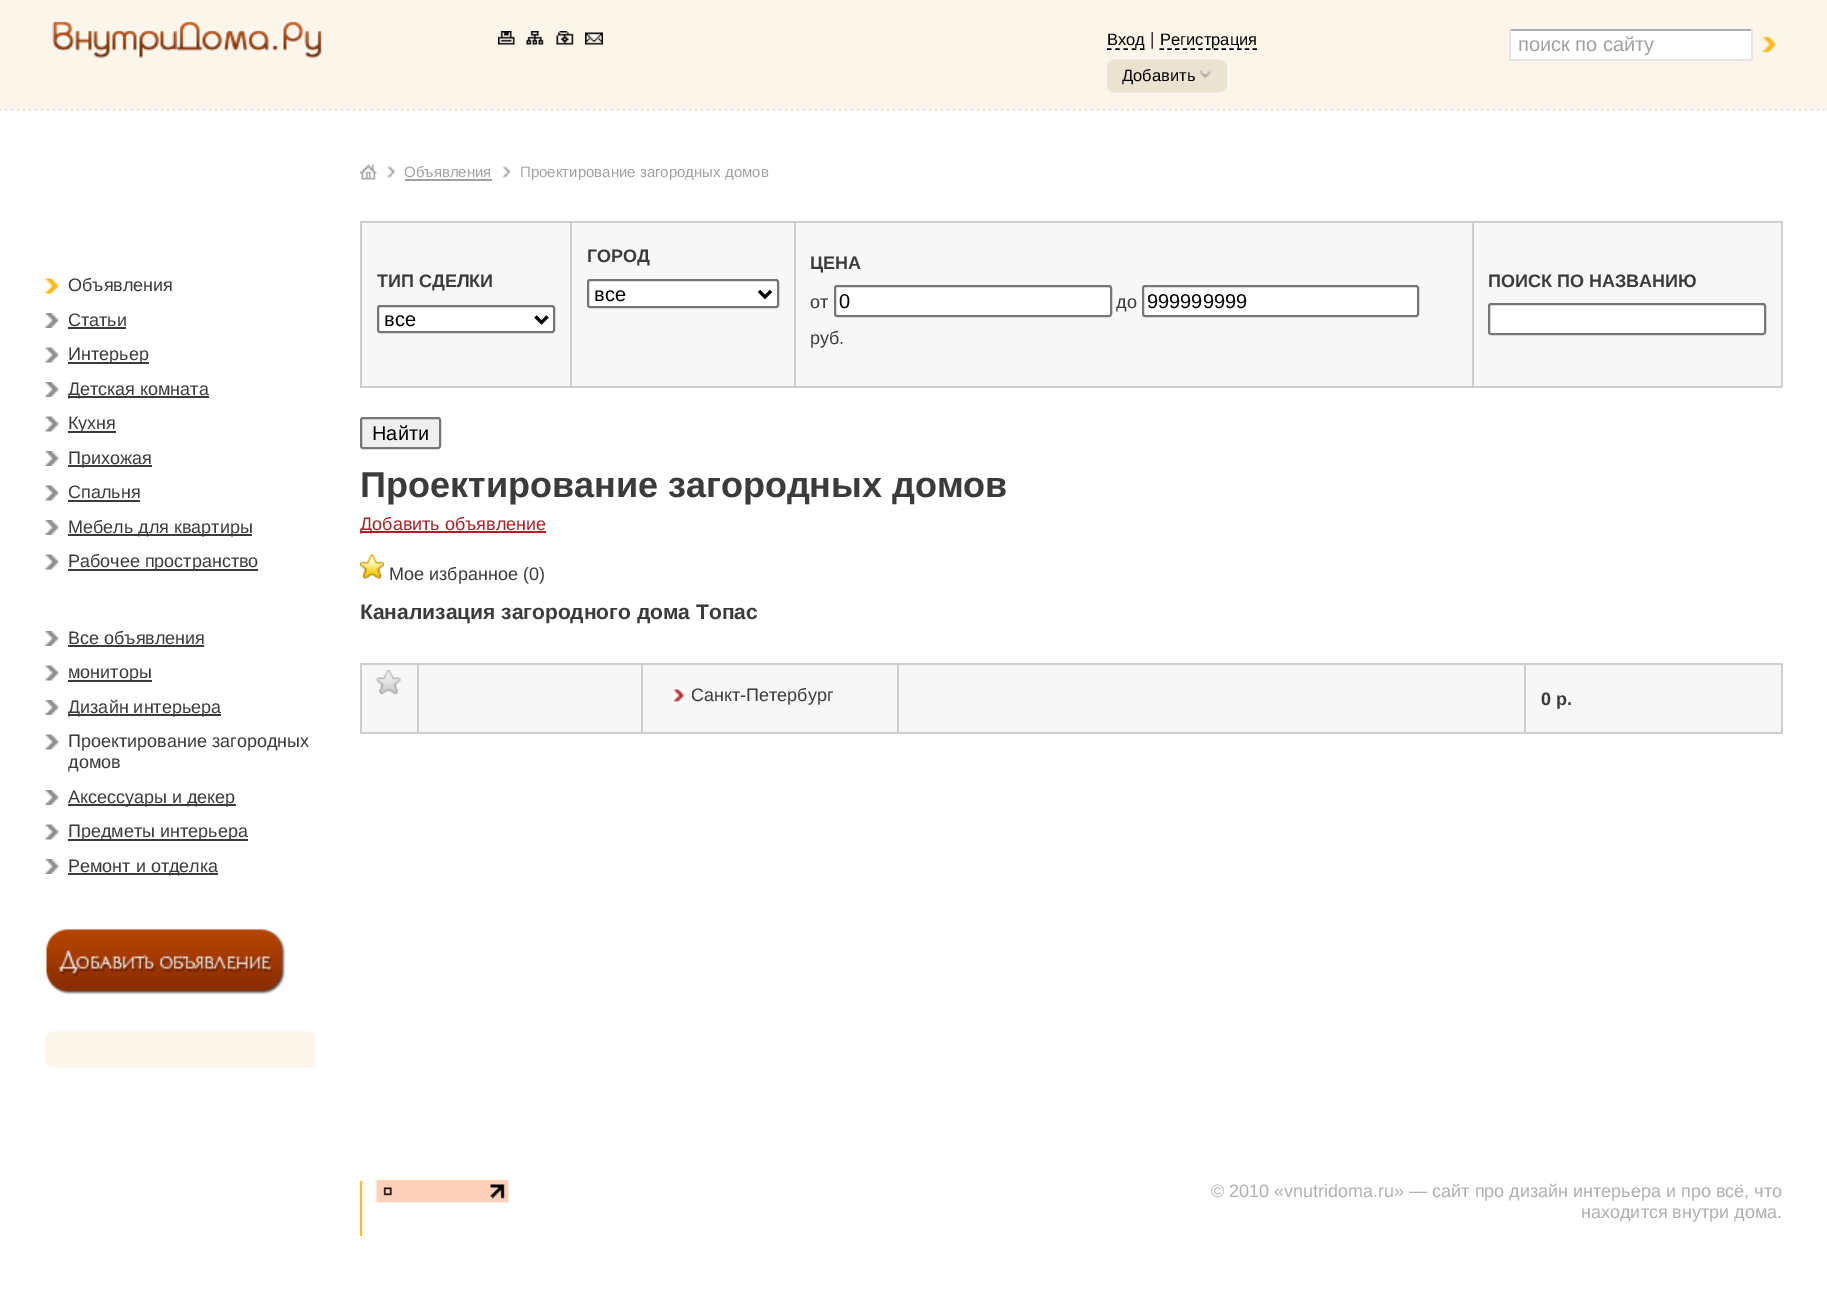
%!PS-Adobe-3.0
%%BoundingBox: 0 0 1827 1306
%%LanguageLevel: 3
%%Pages: 1
%%EndComments
%%BeginProlog
/setink { dup -16 bitshift 255 div exch dup -8 bitshift 255 and 255 div exch 255 and 255 div setrgbcolor } def
/usefont { [ exch dup neg 0 0 3 -1 roll 0 0 ] selectfont } def
/rrect { 5 dict begin { /r /h /w /y /x } { exch def } forall
  x r add y moveto x w add y 2 copy h add r arct x w add y h add x 1 index r arct
  x y h add x y r arct x y 2 copy exch w add exch r arct closepath end } def
/drawimage { 5 dict begin { /h /w /y /x /name } { exch def } forall
  gsave x y translate w h scale
  w h 8 [w 0 0 h 0 0] name (r) file false 3 colorimage grestore end } def
%%EndProlog
%%BeginSetup
<< /PageSize [1827 1306] >> setpagedevice
%%EndSetup
%%Page: 1 1
0 1306 translate 1 -1 scale
4 setmiterlimit
16#FFFFFF setink
0 0 1827 1306 rectfill
(img1.raw) 0 0 1827 111 drawimage
(img2.raw) 51 20 271 39 drawimage
(img3.raw) 498 31 17 14 drawimage
(img4.raw) 526 31 18 14 drawimage
(img5.raw) 556 31 18 14 drawimage
(img6.raw) 585 32 18 13 drawimage
16#000000 setink
1.5 setlinewidth
[4.5 3.75] 0 setdash
1107 49 moveto 1144.5 49 lineto stroke
/LiberationSans-Regular 16.5 usefont
1107 45 moveto (Вход) show
/LiberationSans-Regular 18 usefont
16#3B3B3B setink
1150 45 moveto (|) show
16#000000 setink
[4.5 3.25] 0 setdash
1159.5 49 moveto 1257 49 lineto stroke
/LiberationSans-Regular 16.5 usefont
1160 45 moveto (Регистрация) show
(img7.raw) 1107 59 120 34 drawimage
1122 81 moveto (Добавить) show
(img8.raw) 1200 70 11 9 drawimage
[
    [1511 31 240 28 16#FFFFFF]
    [1509 29 243 2 16#ADADAF]
    [1751 29 2 31 16#E4E5E7]
    [1509 59 243 2 16#E4E5E7]
    [1509 29 2 31 16#E4E5E7]
] { aload pop setink rectfill } forall
/LiberationSans-Regular 20 usefont
16#A1A1A1 setink
1518 51 moveto (поиск по сайту) show
(img9.raw) 1762 36 15 17 drawimage
(img10.raw) 45 278 14 16 drawimage
/LiberationSans-Regular 18 usefont
16#3B3B3B setink
68 291 moveto (Объявления) show
(img11.raw) 45 313 14 15 drawimage
68 326 moveto (Статьи) show
68 327 58 2 rectfill
(img12.raw) 45 347 14 16 drawimage
68 362 81 2 rectfill
68 360 moveto (Интерьер) show
(img11.raw) 45 382 14 15 drawimage
68 396 141 2 rectfill
68 395 moveto (Детская комната) show
(img12.raw) 45 416 14 16 drawimage
68 431 48 2 rectfill
68 429 moveto (Кухня) show
(img11.raw) 45 451 14 15 drawimage
68 465 84 2 rectfill
68 464 moveto (Прихожая) show
(img12.raw) 45 485 14 16 drawimage
68 498 moveto (Спальня) show
68 500 72 2 rectfill
(img11.raw) 45 520 14 15 drawimage
68 534 184 2 rectfill
68 533 moveto (Мебель для квартиры) show
(img12.raw) 45 554 14 16 drawimage
68 569 190 2 rectfill
68 567 moveto (Рабочее пространство) show
(img11.raw) 45 631 14 15 drawimage
68 644 moveto (Все объявления) show
68 645 136 2 rectfill
(img12.raw) 45 665 14 16 drawimage
68 680 84 2 rectfill
68 678 moveto (мониторы) show
(img11.raw) 45 700 14 15 drawimage
68 714 153 2 rectfill
68 713 moveto (Дизайн интерьера) show
(img12.raw) 45 734 14 16 drawimage
68 747 moveto (Проектирование загородных) show
68 768 moveto (домов) show
(img11.raw) 45 790 14 15 drawimage
68 804 168 2 rectfill
68 803 moveto (Аксессуары и декер) show
(img12.raw) 45 824 14 16 drawimage
68 839 180 2 rectfill
68 837 moveto (Предметы интерьера) show
(img11.raw) 45 859 14 15 drawimage
68 873 150 2 rectfill
68 872 moveto (Ремонт и отделка) show
(img13.raw) 46 929 240 66 drawimage
(img14.raw) 45 1031 270 11 drawimage
(img15.raw) 45 1042 270 15 drawimage
(img16.raw) 45 1057 270 11 drawimage
(img17.raw) 360 164 17 16 drawimage
(img18.raw) 386 166 9 12 drawimage
/LiberationSans-Regular 15 usefont
16#A1A1A1 setink
404 177 moveto (Объявления) show
405 179 87 2 rectfill
(img19.raw) 502 166 9 12 drawimage
520 177 moveto (Проектирование загородных домов) show
[
    [362 223 208 163 16#F7F7F7]
    [1472 221 310 2 16#CECECE]
    [1781 221 2 166 16#CECECE]
    [1472 386 310 2 16#CECECE]
    [1472 221 2 166 16#CECECE]
    [794 221 679 2 16#CECECE]
    [794 386 679 2 16#CECECE]
    [794 221 2 166 16#CECECE]
    [570 221 225 2 16#CECECE]
    [570 386 225 2 16#CECECE]
    [570 221 2 166 16#CECECE]
    [360 221 212 2 16#CECECE]
    [360 386 212 2 16#CECECE]
    [360 221 2 166 16#CECECE]
] { aload pop setink rectfill } forall
/LiberationSans-Bold 18 usefont
16#3B3B3B setink
377 287 moveto (ТИП СДЕЛКИ) show
16#FFFFFF setink
378 306 176 26 2 rrect gsave fill grestore
16#767676 setink
2 setlinewidth
[] 0 setdash
stroke
16#000000 setink
3 setlinewidth
535.5 316.5 moveto 541.5 322.5 lineto 547.5 316.5 lineto stroke
/LiberationSans-Regular 20 usefont
384 326 moveto (все) show
16#F7F7F7 setink
572 223 222 163 rectfill
/LiberationSans-Bold 18 usefont
16#3B3B3B setink
587 262 moveto (ГОРОД) show
16#FFFFFF setink
588 280 190 27 2 rrect gsave fill grestore
16#767676 setink
2 setlinewidth
stroke
16#000000 setink
3 setlinewidth
759 291 moveto 765 297 lineto 771 291 lineto stroke
/LiberationSans-Regular 20 usefont
594 301 moveto (все) show
16#F7F7F7 setink
796 223 676 163 rectfill
/LiberationSans-Bold 18 usefont
16#3B3B3B setink
810 269 moveto (ЦЕНА) show
/LiberationSans-Regular 18 usefont
810 308 moveto (от) show
16#FFFFFF setink
835 286 276 30 2 rrect gsave fill grestore
16#767676 setink
2 setlinewidth
stroke
/LiberationSans-Regular 20 usefont
16#000000 setink
839 308 moveto (0) show
/LiberationSans-Regular 18 usefont
16#3B3B3B setink
1116 308 moveto (до) show
16#FFFFFF setink
1143 286 275 30 2 rrect gsave fill grestore
16#767676 setink
stroke
/LiberationSans-Regular 20 usefont
16#000000 setink
1147 308 moveto (999999999) show
/LiberationSans-Regular 18 usefont
16#3B3B3B setink
810 344 moveto (руб.) show
16#F7F7F7 setink
1474 223 307 163 rectfill
/LiberationSans-Bold 18 usefont
16#3B3B3B setink
1488 287 moveto (ПОИСК ПО НАЗВАНИЮ) show
16#FFFFFF setink
1489 304 276 30 2 rrect gsave fill grestore
16#767676 setink
stroke
16#EFEFEF setink
361 418 79 30 2 rrect gsave fill grestore
16#767676 setink
stroke
/LiberationSans-Regular 20 usefont
16#000000 setink
372 440 moveto (Найти) show
/LiberationSans-Bold 36 usefont
16#3B3B3B setink
360 497 moveto (Проектирование загородных домов) show
16#AF1F23 setink
360 531 186 2 rectfill
/LiberationSans-Regular 18 usefont
360 530 moveto (Добавить объявление) show
(img20.raw) 360 554 24 25 drawimage
16#3B3B3B setink
389 580 moveto (Мое избранное \(0\)) show
/LiberationSans-Bold 21 usefont
360 619 moveto (Канализация загородного дома Топас) show
[
    [362 665 55 67 16#F7F7F7]
    [1524 663 258 2 16#CECECE]
    [1781 663 2 71 16#CECECE]
    [1524 732 258 2 16#CECECE]
    [1524 663 2 71 16#CECECE]
    [897 663 629 2 16#CECECE]
    [897 732 629 2 16#CECECE]
    [897 663 2 71 16#CECECE]
    [641 663 258 2 16#CECECE]
    [641 732 258 2 16#CECECE]
    [641 663 2 71 16#CECECE]
    [417 663 225 2 16#CECECE]
    [417 732 225 2 16#CECECE]
    [417 663 2 71 16#CECECE]
    [360 663 59 2 16#CECECE]
    [360 732 59 2 16#CECECE]
    [360 663 2 71 16#CECECE]
] { aload pop setink rectfill } forall
(img21.raw) 376 670 25 24 drawimage
16#F7F7F7 setink
419 665 222 67 rectfill
643 665 254 67 rectfill
(img22.raw) 672 688 14 15 drawimage
/LiberationSans-Regular 18 usefont
16#3B3B3B setink
691 701 moveto (Санкт-Петербург) show
16#F7F7F7 setink
899 665 625 67 rectfill
1526 665 255 67 rectfill
/LiberationSans-Bold 18 usefont
16#3B3B3B setink
1541 705 moveto (0 р.) show
16#FDBC21 setink
360 1181 2 55 rectfill
(img23.raw) 376 1180 133 23 drawimage
/LiberationSans-Regular 18 usefont
16#AFAFAF setink
1211 1197 moveto (© 2010 «vnutridoma.ru» — сайт про дизайн интерьера и про всё, что) show
1581 1218 moveto (находится внутри дома.) show
showpage
%%EOF
